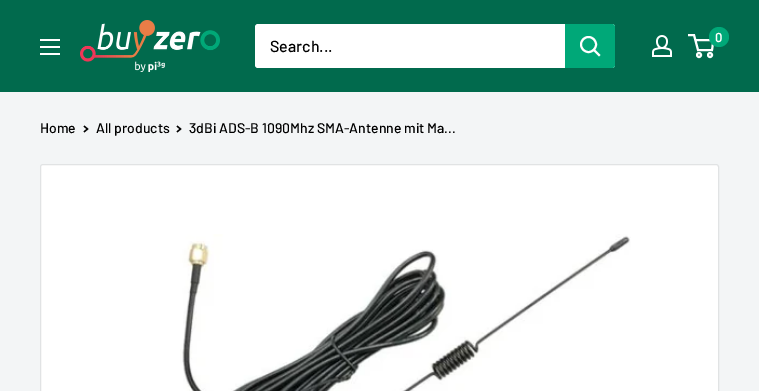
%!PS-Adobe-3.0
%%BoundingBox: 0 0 759 391
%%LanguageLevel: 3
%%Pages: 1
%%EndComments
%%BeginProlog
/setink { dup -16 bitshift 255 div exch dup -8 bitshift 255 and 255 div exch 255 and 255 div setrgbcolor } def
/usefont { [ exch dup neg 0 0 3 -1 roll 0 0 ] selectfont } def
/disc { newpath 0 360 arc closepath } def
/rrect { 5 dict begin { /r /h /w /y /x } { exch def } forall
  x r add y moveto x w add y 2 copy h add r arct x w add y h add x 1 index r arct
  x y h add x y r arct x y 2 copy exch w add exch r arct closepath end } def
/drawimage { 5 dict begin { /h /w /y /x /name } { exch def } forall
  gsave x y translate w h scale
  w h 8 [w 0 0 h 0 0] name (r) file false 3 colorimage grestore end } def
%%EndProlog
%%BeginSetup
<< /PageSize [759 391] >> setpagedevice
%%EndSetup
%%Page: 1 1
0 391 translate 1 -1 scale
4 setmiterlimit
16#F3F5F6 setink
0 0 759 391 rectfill
16#016A4D setink
0 0 759 92 rectfill
(img1.raw) 80 20 140 52 drawimage
(img2.raw) 652 35 20 22 drawimage
16#FFFFFF setink
2 setlinewidth
699 55 2 disc stroke
710 55 2 disc stroke
695.5 40 moveto 713.5 40 lineto 712 50 lineto 698 50 lineto 694 35 lineto 688 35 lineto stroke
16#00A878 setink
719 37 10 disc fill
/Barlow-SemiBold 13 usefont
16#FFFFFF setink
715 42 moveto (0) show
(img3.raw) 40 39 20 16 drawimage
255 24 360 44 3 rrect fill
/Barlow-Medium 16 usefont
16#000000 setink
270 52 moveto (Search...) show
16#00A878 setink
565 24 moveto 612 24 lineto 613.5 24 615 25.5 615 27 curveto 615 65 lineto 615 66.5 613.5 68 612 68 curveto 565 68 lineto closepath fill
16#FFFFFF setink
2 setlinecap
599 55 moveto 594 50 lineto stroke
0 setlinecap
588.5 44.5 7.5 disc stroke
/Barlow-Medium 14 usefont
16#000000 setink
40 133 moveto (Home) show
1.3 setlinewidth
2 setlinecap
84.5 126.5 moveto 87.5 129 lineto 84.5 131.5 lineto stroke
96 133 moveto (All products) show
177.5 126.5 moveto 180.5 129 lineto 177.5 131.5 lineto stroke
189 133 moveto (3dBi ADS-B 1090Mhz SMA-Antenne mit Ma...) show
16#FFFFFF setink
40.5 164.5 678 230 2.5 rrect gsave fill grestore
16#E1E3E4 setink
1 setlinewidth
0 setlinecap
stroke
(img4.raw) 180 234 451 157 drawimage
showpage
%%EOF
